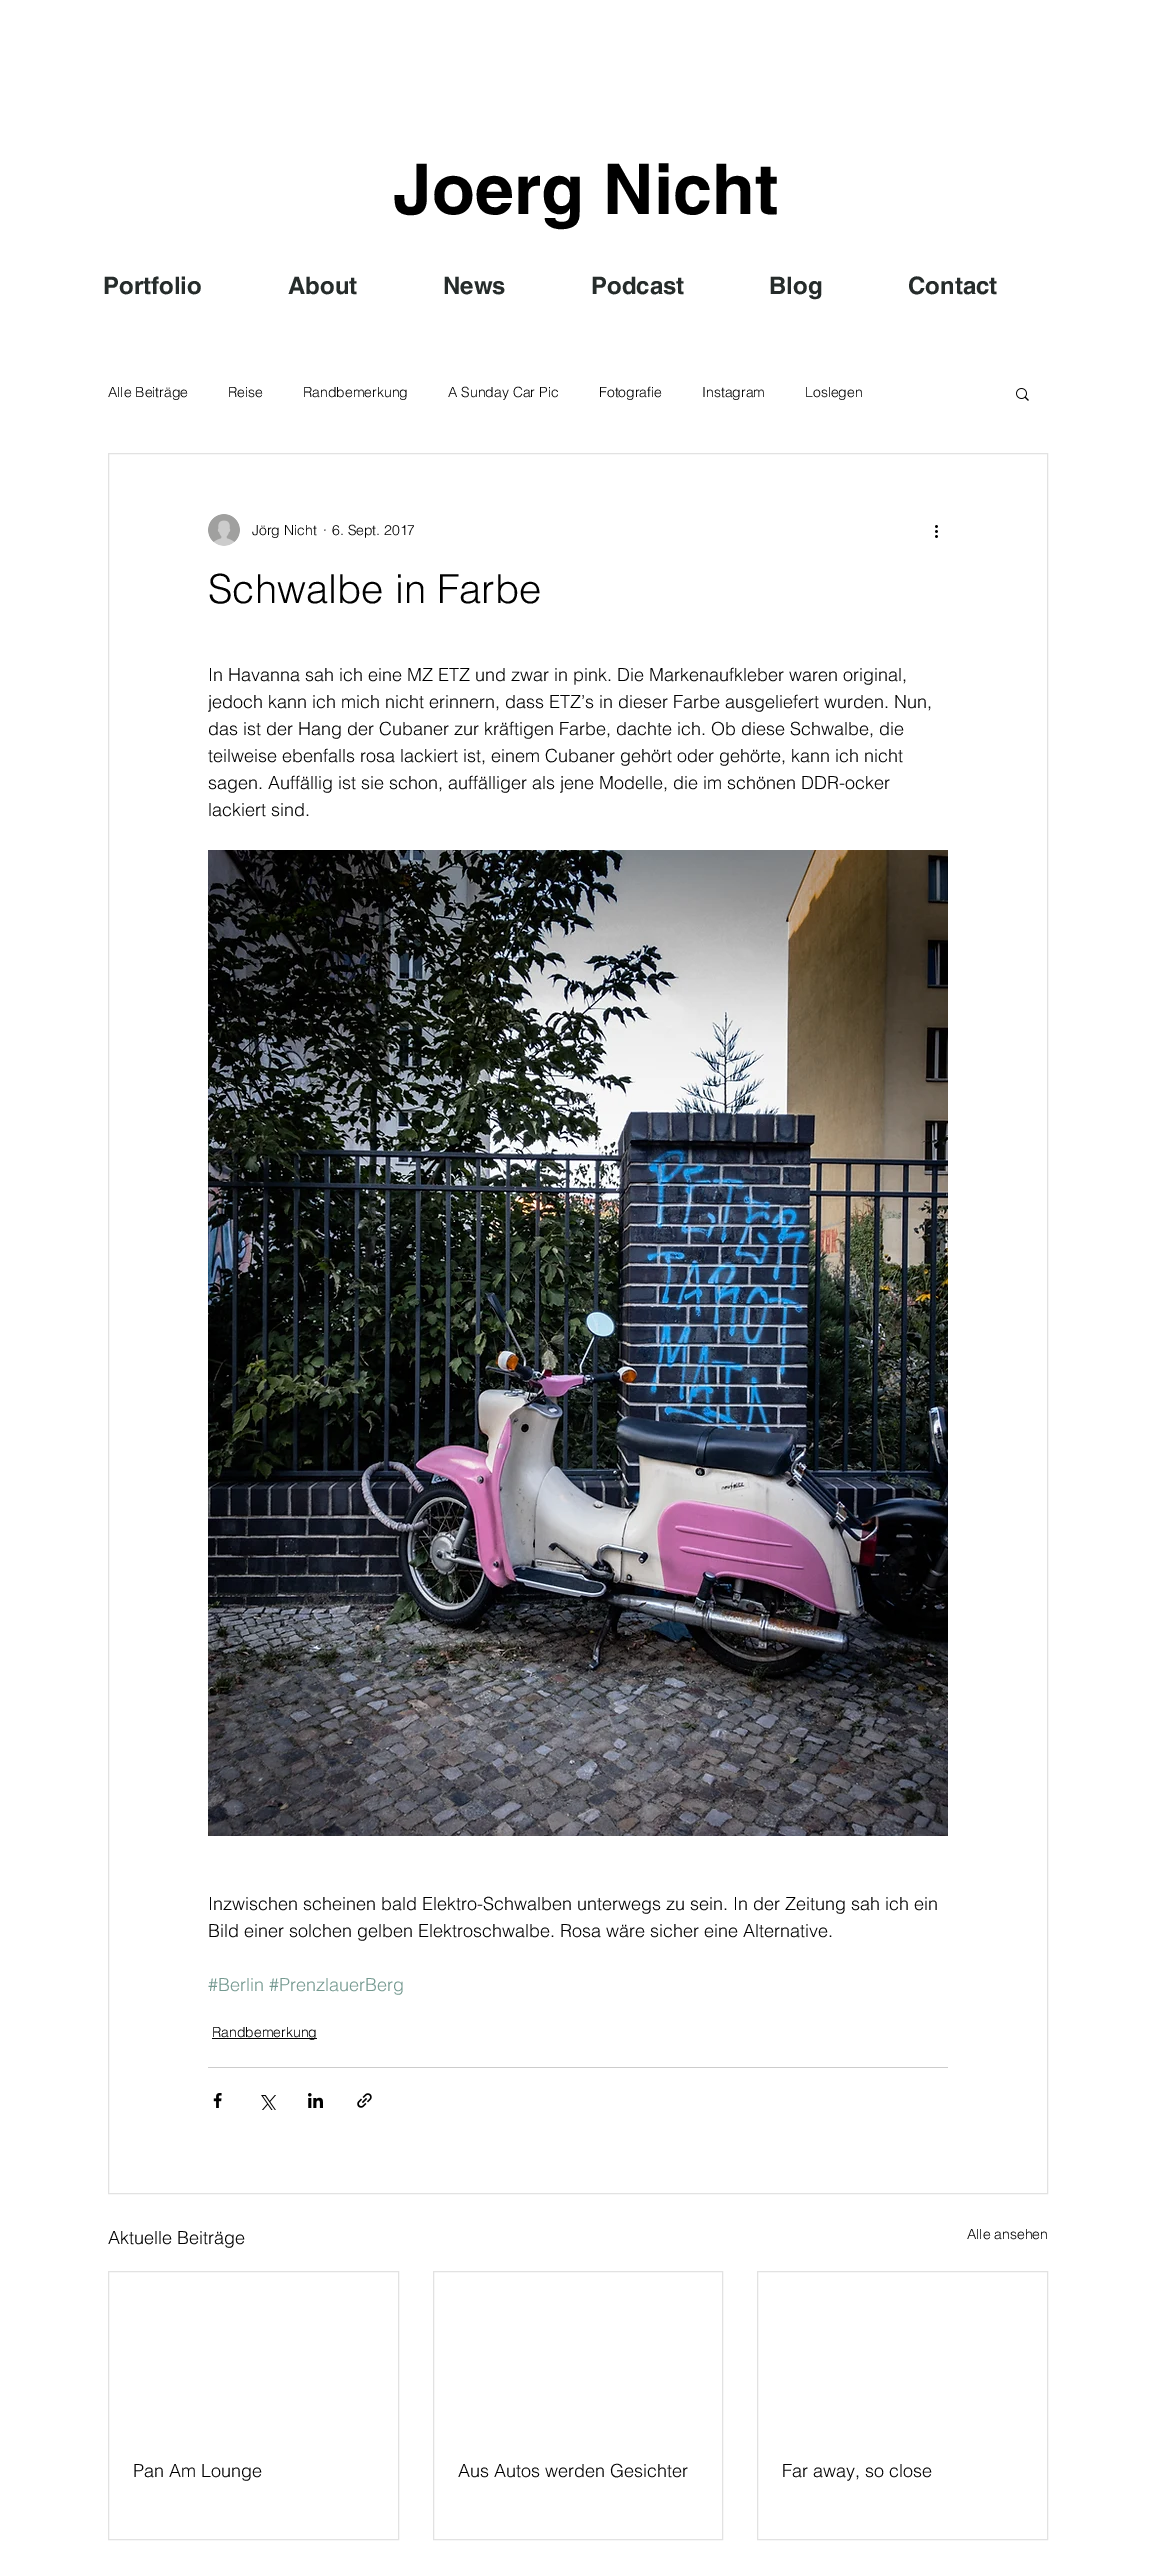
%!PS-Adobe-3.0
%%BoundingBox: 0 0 1156 2554
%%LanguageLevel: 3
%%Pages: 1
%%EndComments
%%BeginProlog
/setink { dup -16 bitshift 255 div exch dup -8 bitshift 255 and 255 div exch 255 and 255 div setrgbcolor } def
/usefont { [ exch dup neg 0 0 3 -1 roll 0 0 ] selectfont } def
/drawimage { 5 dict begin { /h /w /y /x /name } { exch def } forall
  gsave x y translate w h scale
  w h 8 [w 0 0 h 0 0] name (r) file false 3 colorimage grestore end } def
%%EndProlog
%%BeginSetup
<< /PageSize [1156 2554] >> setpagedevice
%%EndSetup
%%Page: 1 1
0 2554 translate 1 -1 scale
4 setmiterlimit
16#FFFFFF setink
0 0 1156 2554 rectfill
/helvetica-Bold 70 usefont
16#000000 setink
393 214 moveto (Joerg Nicht) show
/helvetica-Bold 24 usefont
16#262C2B setink
[
    [(Portfolio) 103 294]
    [(About) 288 294]
    [(News) 443 294]
    [(Podcast) 591 294]
    [(Blog) 769 294]
    [(Contact) 908 294]
] { aload pop moveto show } forall
/helvetica-Light 14 usefont
16#000000 setink
[
    [(Alle Beiträge) 108 397]
    [(Reise) 228 397]
    [(Randbemerkung) 303 397]
    [(A Sunday Car Pic) 448 397]
    [(Fotografie) 599 397]
    [(Instagram) 702 397]
    [(Loslegen) 805 397]
] { aload pop moveto show } forall
(img1.raw) 1016 388 13 13 drawimage
16#E2E2E2 setink
108.5 453.5 939 1740 rectstroke
(img2.raw) 208 514 32 32 drawimage
16#000000 setink
[
    [(Jörg Nicht) 252 535]
    [(·) 323 535]
    [(6. Sept. 2017) 332 535]
] { aload pop moveto show } forall
(img3.raw) 935 525 3 13 drawimage
/helvetica-Light 40 usefont
208 603 moveto (Schwalbe in Farbe) show
/helvetica-Light 18 usefont
[
    [(In Havanna sah ich eine MZ ETZ und zwar in pink. Die Markenaufkleber waren original,) 208 681]
    [(jedoch kann ich mich nicht erinnern, dass ETZ’s in dieser Farbe ausgeliefert wurden. Nun,) 208 708]
    [(das ist der Hang der Cubaner zur kräftigen Farbe, dachte ich. Ob diese Schwalbe, die) 208 735]
    [(teilweise ebenfalls rosa lackiert ist, einem Cubaner gehört oder gehörte, kann ich nicht) 208 762]
    [(sagen. Auffällig ist sie schon, auffälliger als jene Modelle, die im schönen DDR-ocker) 208 789]
    [(lackiert sind.) 208 816]
] { aload pop moveto show } forall
(img4.raw) 208 850 740 986 drawimage
208 1910 moveto (Inzwischen scheinen bald Elektro-Schwalben unterwegs zu sein. In der Zeitung sah ich ein) show
208 1937 moveto (Bild einer solchen gelben Elektroschwalbe. Rosa wäre sicher eine Alternative.) show
16#749990 setink
208 1991 moveto (#Berlin #PrenzlauerBerg) show
16#000000 setink
212 2038 105 1 rectfill
/helvetica-Light 14 usefont
212 2037 moveto (Randbemerkung) show
16#CCCCCC setink
208 2067 740 1 rectfill
(img5.raw) 213 2093 9 15 drawimage
(img6.raw) 261 2095 15 15 drawimage
(img7.raw) 308 2093 15 15 drawimage
(img8.raw) 357 2093 15 15 drawimage
/helvetica-Light 18 usefont
16#000000 setink
108 2244 moveto (Aktuelle Beiträge) show
/helvetica-Light 14 usefont
967 2239 moveto (Alle ansehen) show
16#E2E2E2 setink
108.5 2271.5 290 268 rectstroke
/helvetica-Light 18 usefont
16#000000 setink
133 2477 moveto (Pan Am Lounge) show
16#E2E2E2 setink
433.5 2271.5 289 268 rectstroke
16#000000 setink
458 2477 moveto (Aus Autos werden Gesichter) show
16#E2E2E2 setink
757.5 2271.5 290 268 rectstroke
16#000000 setink
782 2477 moveto (Far away, so close) show
showpage
%%EOF
